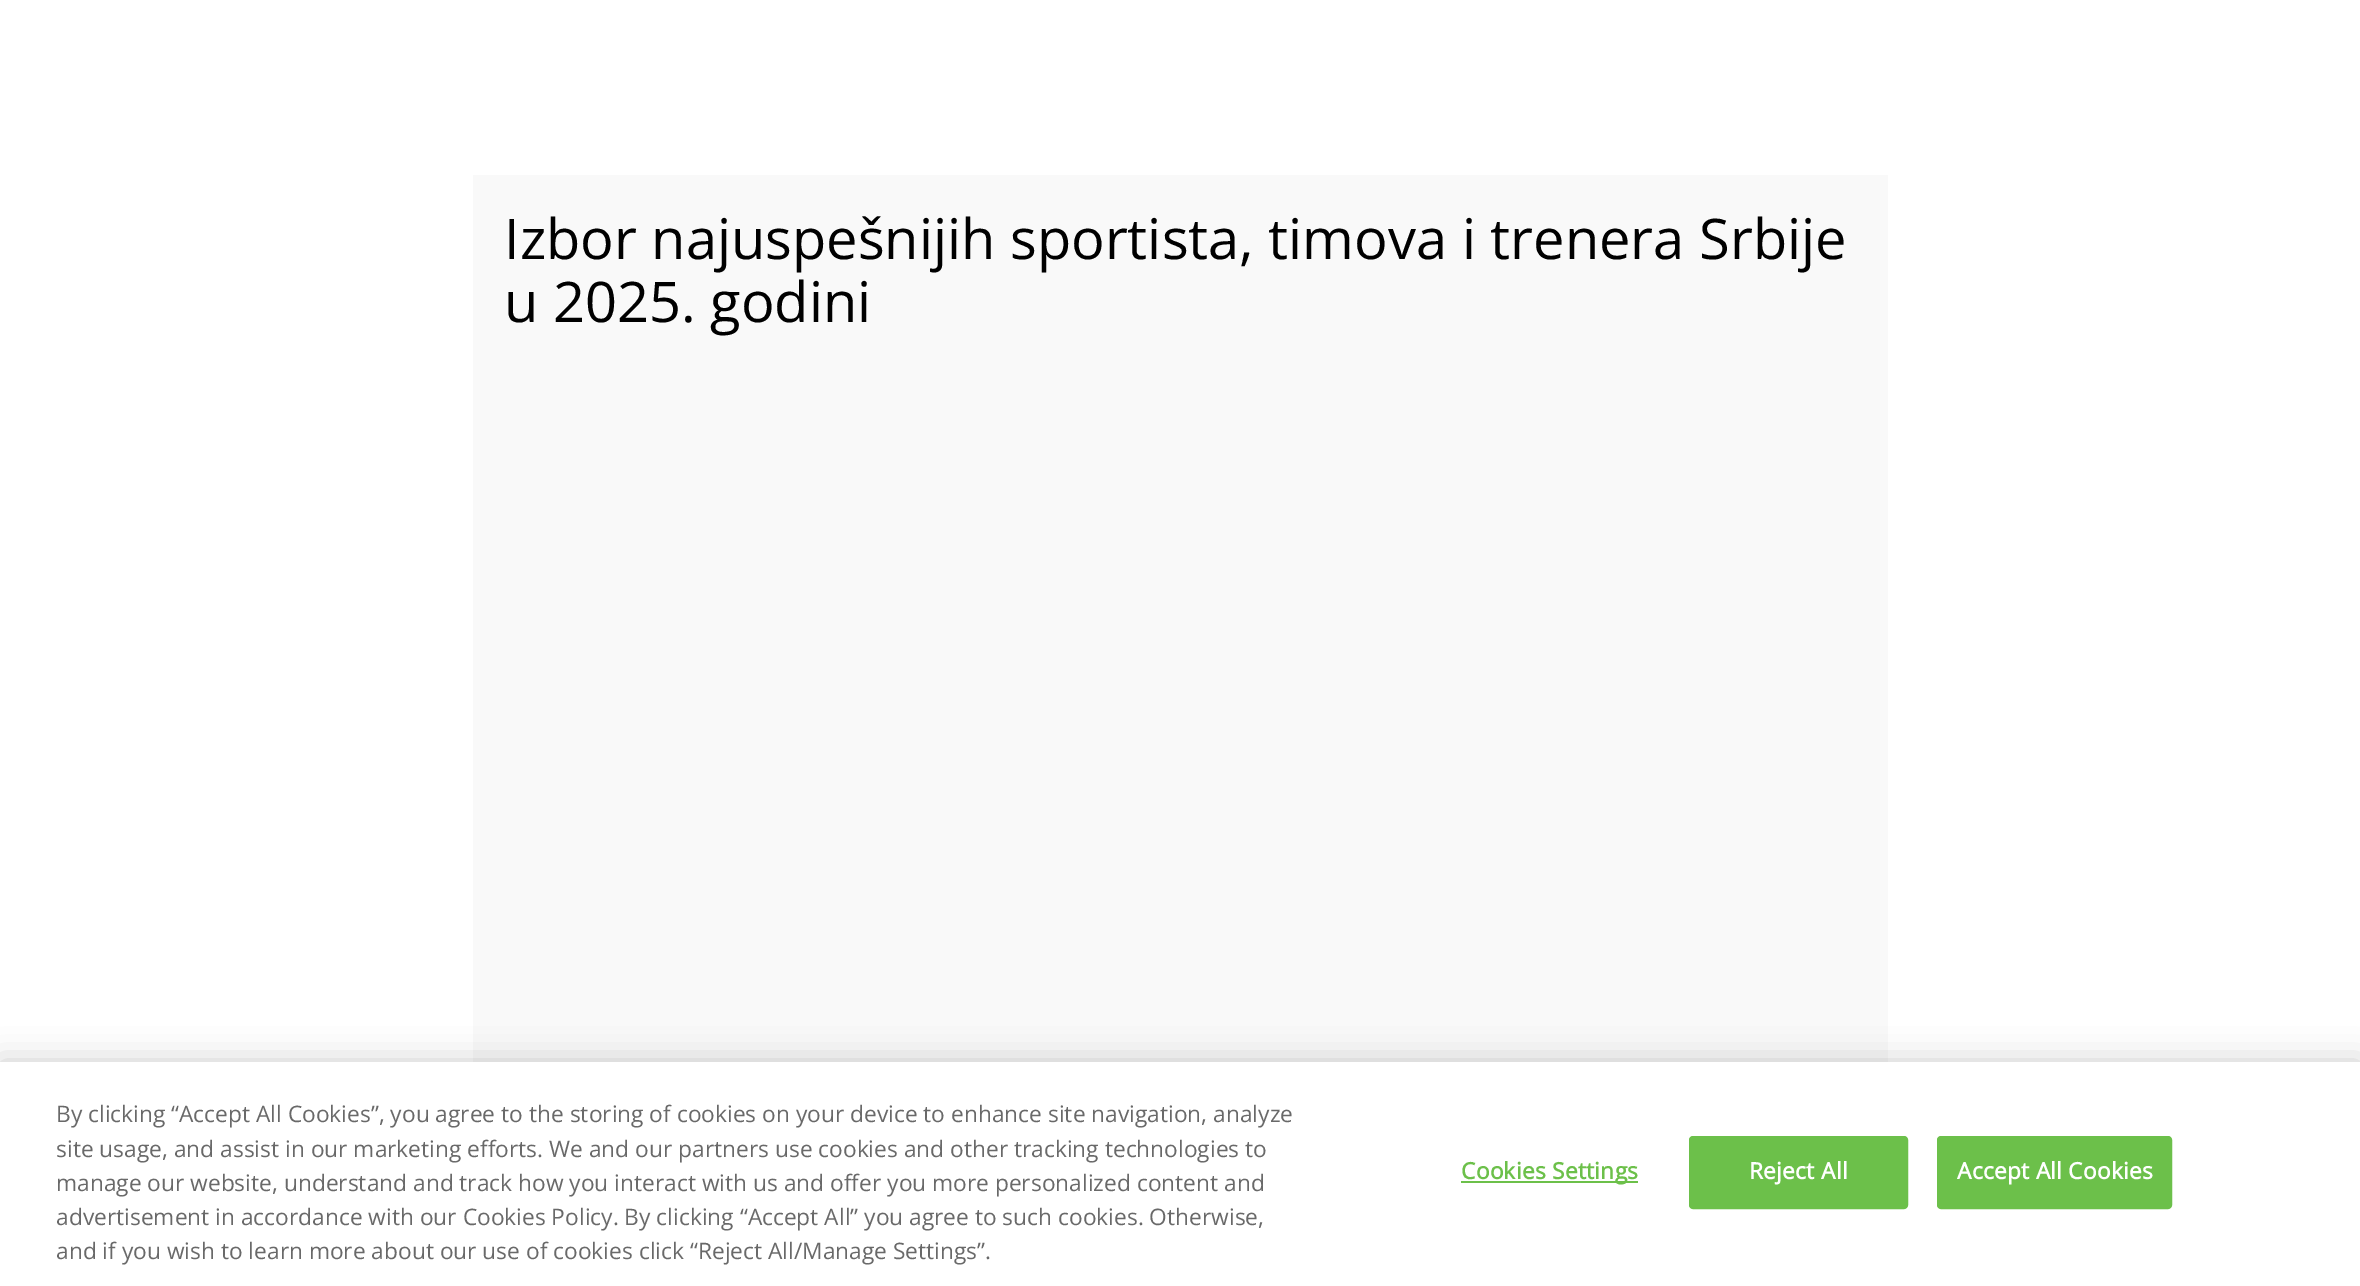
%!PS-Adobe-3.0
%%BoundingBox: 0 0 2360 1286
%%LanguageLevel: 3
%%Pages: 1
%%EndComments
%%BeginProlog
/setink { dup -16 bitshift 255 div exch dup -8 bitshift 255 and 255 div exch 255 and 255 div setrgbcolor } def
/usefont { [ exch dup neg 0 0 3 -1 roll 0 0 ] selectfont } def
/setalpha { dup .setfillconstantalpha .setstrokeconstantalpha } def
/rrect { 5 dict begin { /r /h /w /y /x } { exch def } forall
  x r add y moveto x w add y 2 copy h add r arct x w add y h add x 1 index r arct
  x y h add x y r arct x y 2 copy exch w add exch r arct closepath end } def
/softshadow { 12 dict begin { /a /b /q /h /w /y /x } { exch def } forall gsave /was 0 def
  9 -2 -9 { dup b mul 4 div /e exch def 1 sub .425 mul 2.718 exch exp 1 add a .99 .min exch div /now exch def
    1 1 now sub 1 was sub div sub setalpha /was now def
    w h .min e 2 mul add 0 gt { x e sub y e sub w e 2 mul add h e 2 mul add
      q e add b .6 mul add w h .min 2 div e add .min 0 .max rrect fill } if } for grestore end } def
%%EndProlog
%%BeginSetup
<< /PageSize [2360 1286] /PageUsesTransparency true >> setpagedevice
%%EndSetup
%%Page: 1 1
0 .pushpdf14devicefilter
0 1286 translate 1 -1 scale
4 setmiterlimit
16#FFFFFF setink
0 0 2360 1286 rectfill
16#F9F9F9 setink
473 175 1415 887 rectfill
/OpenSans-Regular 56 usefont
16#000000 setink
504 259 moveto (Izbor najuspešnijih sportista, timova i trenera Srbije) show
504 322 moveto (u 2025. godini) show
0 1062 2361 224 0 16 0.2 softshadow
16#FFFFFF setink
0 1062 2360 224 rectfill
/OpenSans-Regular 22.75 usefont
16#696969 setink
[
    [(By clicking “Accept All Cookies”, you agree to the storing of cookies on your device to enhance site navigation, analyze) 56 1122]
    [(site usage, and assist in our marketing efforts. We and our partners use cookies and other tracking technologies to) 56 1157]
    [(manage our website, understand and track how you interact with us and offer you more personalized content and) 56 1191]
    [(advertisement in accordance with our Cookies Policy. By clicking “Accept All” you agree to such cookies. Otherwise,) 56 1225]
    [(and if you wish to learn more about our use of cookies click “Reject All/Manage Settings”.) 56 1259]
] { aload pop moveto show } forall
16#6CC04A setink
1461 1181 177 2 rectfill
/OpenSans-Bold 22.75 usefont
1461 1179 moveto 0.25 0 (Cookies Settings) ashow
1690 1137 217 71 3 rrect gsave fill grestore
2 setlinewidth
stroke
16#FFFFFF setink
1749 1179 moveto 0.25 0 (Reject All) ashow
16#6CC04A setink
1938 1137 233 71 3 rrect gsave fill grestore
stroke
16#FFFFFF setink
1957 1179 moveto 0.25 0 (Accept All Cookies) ashow
.poppdf14devicefilter showpage
%%EOF
